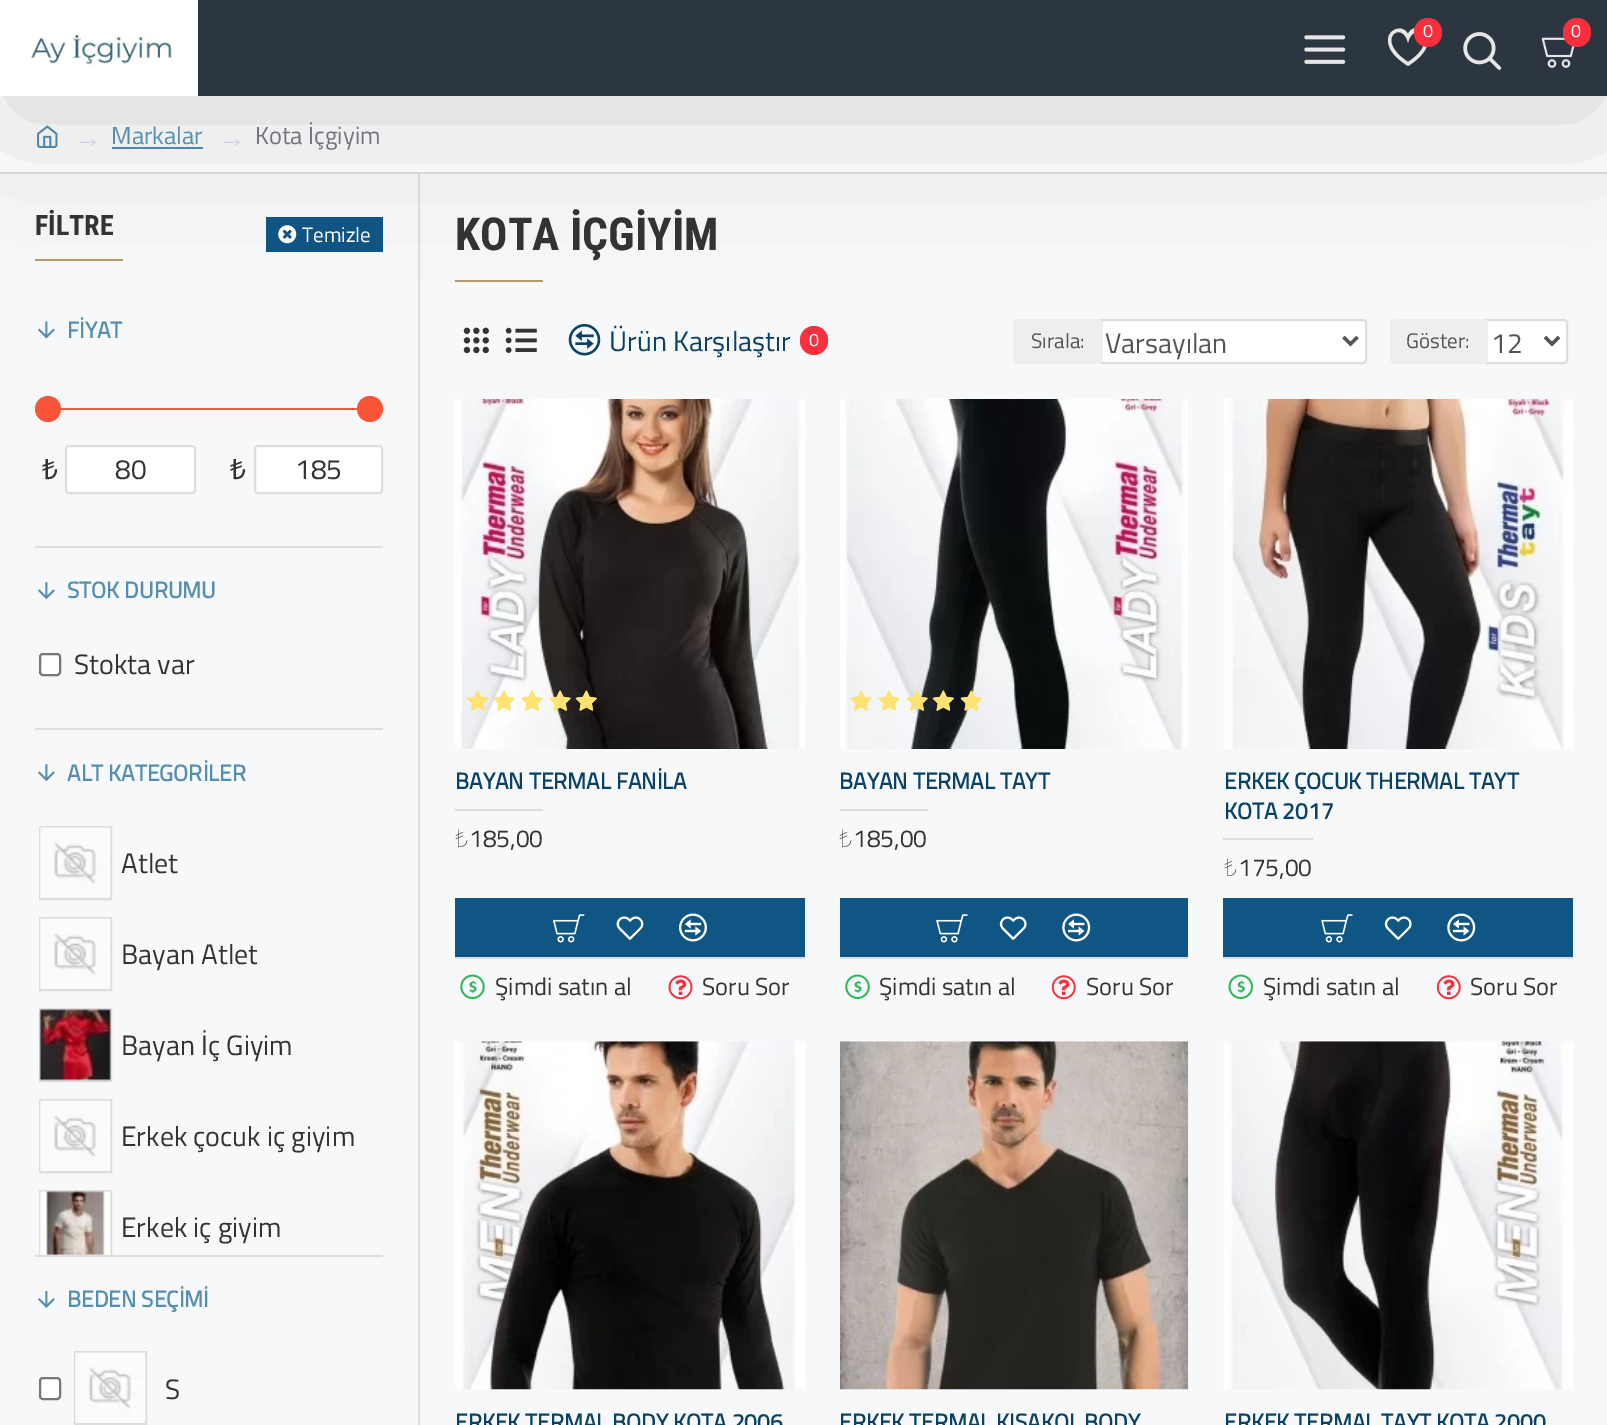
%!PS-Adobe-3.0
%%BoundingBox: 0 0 1607 1425
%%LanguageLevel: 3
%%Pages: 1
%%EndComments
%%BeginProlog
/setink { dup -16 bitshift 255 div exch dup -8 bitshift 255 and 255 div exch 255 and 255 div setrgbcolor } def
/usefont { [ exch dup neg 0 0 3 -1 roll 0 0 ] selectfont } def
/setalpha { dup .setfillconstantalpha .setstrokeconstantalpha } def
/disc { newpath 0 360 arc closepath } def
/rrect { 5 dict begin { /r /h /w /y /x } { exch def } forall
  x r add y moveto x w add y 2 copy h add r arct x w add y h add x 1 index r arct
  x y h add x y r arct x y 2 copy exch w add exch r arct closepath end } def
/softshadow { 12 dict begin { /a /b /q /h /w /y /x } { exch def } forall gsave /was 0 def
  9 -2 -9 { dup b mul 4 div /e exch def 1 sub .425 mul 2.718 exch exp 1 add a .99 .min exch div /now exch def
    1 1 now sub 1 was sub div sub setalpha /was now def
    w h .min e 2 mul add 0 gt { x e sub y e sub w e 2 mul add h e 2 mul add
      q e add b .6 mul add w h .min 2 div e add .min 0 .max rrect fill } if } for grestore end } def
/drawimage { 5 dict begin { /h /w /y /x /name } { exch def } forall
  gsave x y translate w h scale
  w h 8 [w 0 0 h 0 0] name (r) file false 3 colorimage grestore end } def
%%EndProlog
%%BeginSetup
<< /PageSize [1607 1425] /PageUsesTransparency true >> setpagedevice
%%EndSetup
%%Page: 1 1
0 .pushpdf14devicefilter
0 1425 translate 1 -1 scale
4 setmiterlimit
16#F7F8FA setink
0 0 1607 1425 rectfill
16#FFFFFF setink
0 96 1607 76 rectfill
16#DDDDDD setink
0 172 1607 2 rectfill
(img5.raw) 37 125 21 23 drawimage
[
    [112 147 91 2 16#568EAF]
    [418 173 2 1252 16#DDDDDD]
    [266 217 117 35 16#0F5684]
] { aload pop setink rectfill } forall
(img6.raw) 278 225 19 19 drawimage
16#B59B6E setink
35 259 88 2 rectfill
(img7.raw) 38 321 17 18 drawimage
455 280 88 2 rectfill
(img14.raw) 463 327 26 27 drawimage
(img15.raw) 505 327 32 26 drawimage
(img16.raw) 568 324 33 32 drawimage
16#F8303D setink
800 326 28 29 14 rrect fill
16#FFFFFF setink
1098 320 268 43 3 rrect gsave fill grestore
16#DDDDDD setink
2 setlinewidth
stroke
16#EEEEEE setink
1013 319 90 45 5 rrect fill
16#555555 setink
3.5 setlinewidth
1343.5 337 moveto 1350.5 344 lineto 1357.5 337 lineto stroke
16#FFFFFF setink
1483 320 84 43 3 rrect gsave fill grestore
16#DDDDDD setink
2 setlinewidth
stroke
16#EEEEEE setink
1390 319 98 45 5 rrect fill
16#555555 setink
3.5 setlinewidth
1545 337 moveto 1552 344 lineto 1559 337 lineto stroke
16#000000 setink
18 44 1573 61 0 79 0.2 softshadow
16#2C3640 setink
198 0 1409 96 rectfill
16#FFFFFF setink
0 0 198 96 rectfill
(img1.raw) 31 33 142 33 drawimage
(img2.raw) 1304 35 42 29 drawimage
16#E6E6E6 setink
1408 43 moveto 1413 19 1443 39 1408 62 curveto 1373 39 1403 19 1408 43 curveto closepath 1388 40 moveto 1388 52 1399 60 1408 66 curveto 1449 40 1415 17 1408 34 curveto 1403 24 1388 29 1388 40 curveto closepath fill
16#F8303D setink
1414 18 28 29 14 rrect fill
/TitilliumWeb-Regular 18 usefont
16#FFFFFF setink
1423 37 moveto (0) show
(img3.raw) 1463 32 39 38 drawimage
(img4.raw) 1541 37 34 31 drawimage
16#F8303D setink
1563 18 28 29 14 rrect fill
16#FFFFFF setink
1571 37 moveto (0) show
/LiberationSerif-Regular 28 usefont
16#CBD1E3 setink
74 147 moveto (→) show
/TitilliumWeb-Regular 24.5 usefont
16#568EAF setink
111 144 moveto (Markalar) show
/LiberationSerif-Regular 28 usefont
16#CBD1E3 setink
218 147 moveto (→) show
/TitilliumWeb-Regular 24.5 usefont
16#737381 setink
255 144 moveto (Kota İçgiyim) show
/RobotoCondensed-Bold 28 usefont
16#333333 setink
35 235 moveto (FİLTRE) show
/TitilliumWeb-Regular 21 usefont
16#FFFFFF setink
302 242 moveto (Temizle) show
/TitilliumWeb-Bold 22.75 usefont
16#568EAF setink
67 338 moveto (FİYAT) show
16#F95539 setink
58 408 moveto 362 408 lineto 368 408 lineto 371 409 lineto 362 410 lineto 58 410 lineto 49 409 lineto 52 408 lineto closepath fill
48 409 13 disc fill
370 409 13 disc fill
/NotoSans-Regular 28 usefont
16#333333 setink
42 479 moveto (₺) show
16#FFFFFF setink
66 446 129 47 3 rrect gsave fill grestore
16#DDDDDD setink
2 setlinewidth
stroke
/TitilliumWeb-Regular 28 usefont
16#333333 setink
115 479 moveto (80) show
/NotoSans-Regular 28 usefont
230 479 moveto (₺) show
16#FFFFFF setink
255 446 127 47 3 rrect gsave fill grestore
16#DDDDDD setink
stroke
/TitilliumWeb-Regular 28 usefont
16#333333 setink
295 479 moveto (185) show
16#DDDDDD setink
35 546 348 2 rectfill
(img8.raw) 38 582 17 18 drawimage
/TitilliumWeb-Bold 22.75 usefont
16#568EAF setink
67 598 moveto (STOK DURUMU) show
16#FFFFFF setink
40 654 20 21 3 rrect gsave fill grestore
16#767676 setink
stroke
/TitilliumWeb-Regular 28 usefont
16#333333 setink
74 674 moveto (Stokta var) show
16#DDDDDD setink
35 728 348 2 rectfill
(img8.raw) 38 764 17 18 drawimage
/TitilliumWeb-Bold 22.75 usefont
16#568EAF setink
67 781 moveto (ALT KATEGORİLER) show
16#DDDDDD setink
40 827 71 72 rectstroke
(img9.raw) 40 827 71 71 drawimage
/TitilliumWeb-Regular 28 usefont
16#333333 setink
121 873 moveto (Atlet) show
16#DDDDDD setink
40 918 71 72 rectstroke
(img9.raw) 40 918 71 71 drawimage
gsave
121 933 136 42 rectclip
16#333333 setink
121 964 moveto (Bayan Atlet) show
grestore
40 1009 71 72 rectstroke
(img10.raw) 39 1009 72 72 drawimage
16#333333 setink
121 1055 moveto (Bayan İç Giyim) show
16#DDDDDD setink
40 1100 71 72 rectstroke
(img9.raw) 40 1100 71 71 drawimage
16#333333 setink
121 1146 moveto (Erkek çocuk iç giyim) show
gsave
35 817 348 438 rectclip
16#DDDDDD setink
40 1191 71 72 rectstroke
grestore
(img11.raw) 39 1191 72 64 drawimage
121 1237 moveto (Erkek iç giyim) show
16#DDDDDD setink
35 1255 348 2 rectfill
(img12.raw) 38 1291 17 17 drawimage
/TitilliumWeb-Bold 22.75 usefont
16#568EAF setink
67 1307 moveto (BEDEN SEÇİMİ) show
16#FFFFFF setink
40 1378 20 21 3 rrect gsave fill grestore
16#767676 setink
stroke
16#DDDDDD setink
75 1352 71 72 rectstroke
(img13.raw) 75 1352 71 71 drawimage
/TitilliumWeb-Regular 28 usefont
16#333333 setink
165 1399 moveto (S) show
/RobotoCondensed-Bold 45.5 usefont
455 250 moveto (KOTA İÇGİYİM) show
/TitilliumWeb-Regular 28 usefont
16#0A4265 setink
609 351 moveto (Ürün Karşılaştır) show
/TitilliumWeb-Regular 18 usefont
16#FFFFFF setink
809 346 moveto (0) show
/TitilliumWeb-Regular 21 usefont
16#555555 setink
1031 348 moveto (Sırala:) show
/TitilliumWeb-Regular 28 usefont
1105 353 moveto (Varsayılan) show
/TitilliumWeb-Regular 21 usefont
1406 348 moveto (Göster:) show
/TitilliumWeb-Regular 28 usefont
1491 353 moveto (12) show
(img17.raw) 455 399 350 350 drawimage
(img18.raw) 467 690 22 21 drawimage
(img19.raw) 467 690 22 21 drawimage
(img20.raw) 493 690 22 21 drawimage
(img21.raw) 493 690 22 21 drawimage
(img22.raw) 521 690 22 21 drawimage
(img23.raw) 521 690 22 21 drawimage
(img24.raw) 549 690 22 21 drawimage
(img25.raw) 549 690 22 21 drawimage
(img26.raw) 575 690 22 21 drawimage
(img27.raw) 575 690 22 21 drawimage
/TitilliumWeb-Bold 22.75 usefont
16#0A4265 setink
455 789 moveto (BAYAN TERMAL FANİLA) show
16#DDDDDD setink
455 809 88 2 rectfill
/NotoSans-Thin 24.5 usefont
16#333333 setink
455 847 moveto (₺) show
/TitilliumWeb-Regular 24.5 usefont
469 847 moveto (185,00) show
16#0F5684 setink
455 898 350 59 rectfill
(img28.raw) 553 914 32 29 drawimage
(img29.raw) 616 916 28 24 drawimage
(img30.raw) 679 913 28 29 drawimage
16#DDDDDD setink
455 957 350 2 rectfill
(img31.raw) 460 974 25 25 drawimage
16#333333 setink
495 995 moveto (Şimdi satın al) show
(img32.raw) 668 975 25 25 drawimage
702 995 moveto (Soru Sor) show
(img33.raw) 840 399 348 350 drawimage
(img34.raw) 850 690 22 21 drawimage
(img35.raw) 850 690 22 21 drawimage
(img36.raw) 878 690 22 21 drawimage
(img37.raw) 878 690 22 21 drawimage
(img38.raw) 906 690 22 21 drawimage
(img39.raw) 906 690 22 21 drawimage
(img40.raw) 932 690 22 21 drawimage
(img41.raw) 932 690 22 21 drawimage
(img42.raw) 960 690 22 21 drawimage
(img43.raw) 960 690 22 21 drawimage
/TitilliumWeb-Bold 22.75 usefont
16#0A4265 setink
839 789 moveto (BAYAN TERMAL TAYT) show
16#DDDDDD setink
840 809 88 2 rectfill
/NotoSans-Thin 24.5 usefont
16#333333 setink
839 847 moveto (₺) show
/TitilliumWeb-Regular 24.5 usefont
853 847 moveto (185,00) show
16#0F5684 setink
840 898 348 59 rectfill
(img44.raw) 936 914 32 29 drawimage
(img45.raw) 999 916 28 24 drawimage
(img46.raw) 1062 913 29 29 drawimage
16#DDDDDD setink
840 957 348 2 rectfill
(img31.raw) 845 974 25 25 drawimage
16#333333 setink
879 995 moveto (Şimdi satın al) show
(img47.raw) 1051 975 25 25 drawimage
1086 995 moveto (Soru Sor) show
(img48.raw) 1223 399 350 350 drawimage
/TitilliumWeb-Bold 22.75 usefont
16#0A4265 setink
1224 789 moveto (ERKEK ÇOCUK THERMAL TAYT) show
1224 819 moveto (KOTA 2017) show
16#DDDDDD setink
1223 838 90 2 rectfill
/NotoSans-Thin 24.5 usefont
16#333333 setink
1224 876 moveto (₺) show
/TitilliumWeb-Regular 24.5 usefont
1238 876 moveto (175,00) show
16#0F5684 setink
1223 898 350 59 rectfill
(img44.raw) 1321 914 32 29 drawimage
(img45.raw) 1384 916 28 24 drawimage
(img46.raw) 1447 913 29 29 drawimage
16#DDDDDD setink
1223 957 350 2 rectfill
(img49.raw) 1228 974 25 25 drawimage
16#333333 setink
1263 995 moveto (Şimdi satın al) show
(img47.raw) 1436 975 25 25 drawimage
1470 995 moveto (Soru Sor) show
(img50.raw) 455 1041 350 349 drawimage
/TitilliumWeb-Bold 22.75 usefont
16#0A4265 setink
455 1430 moveto (ERKEK TERMAL BODY KOTA 2006) show
(img51.raw) 840 1041 349 349 drawimage
839 1430 moveto (ERKEK TERMAL KISAKOL BODY) show
(img52.raw) 1223 1041 350 349 drawimage
1224 1430 moveto (ERKEK TERMAL TAYT KOTA 2000) show
.poppdf14devicefilter showpage
%%EOF
